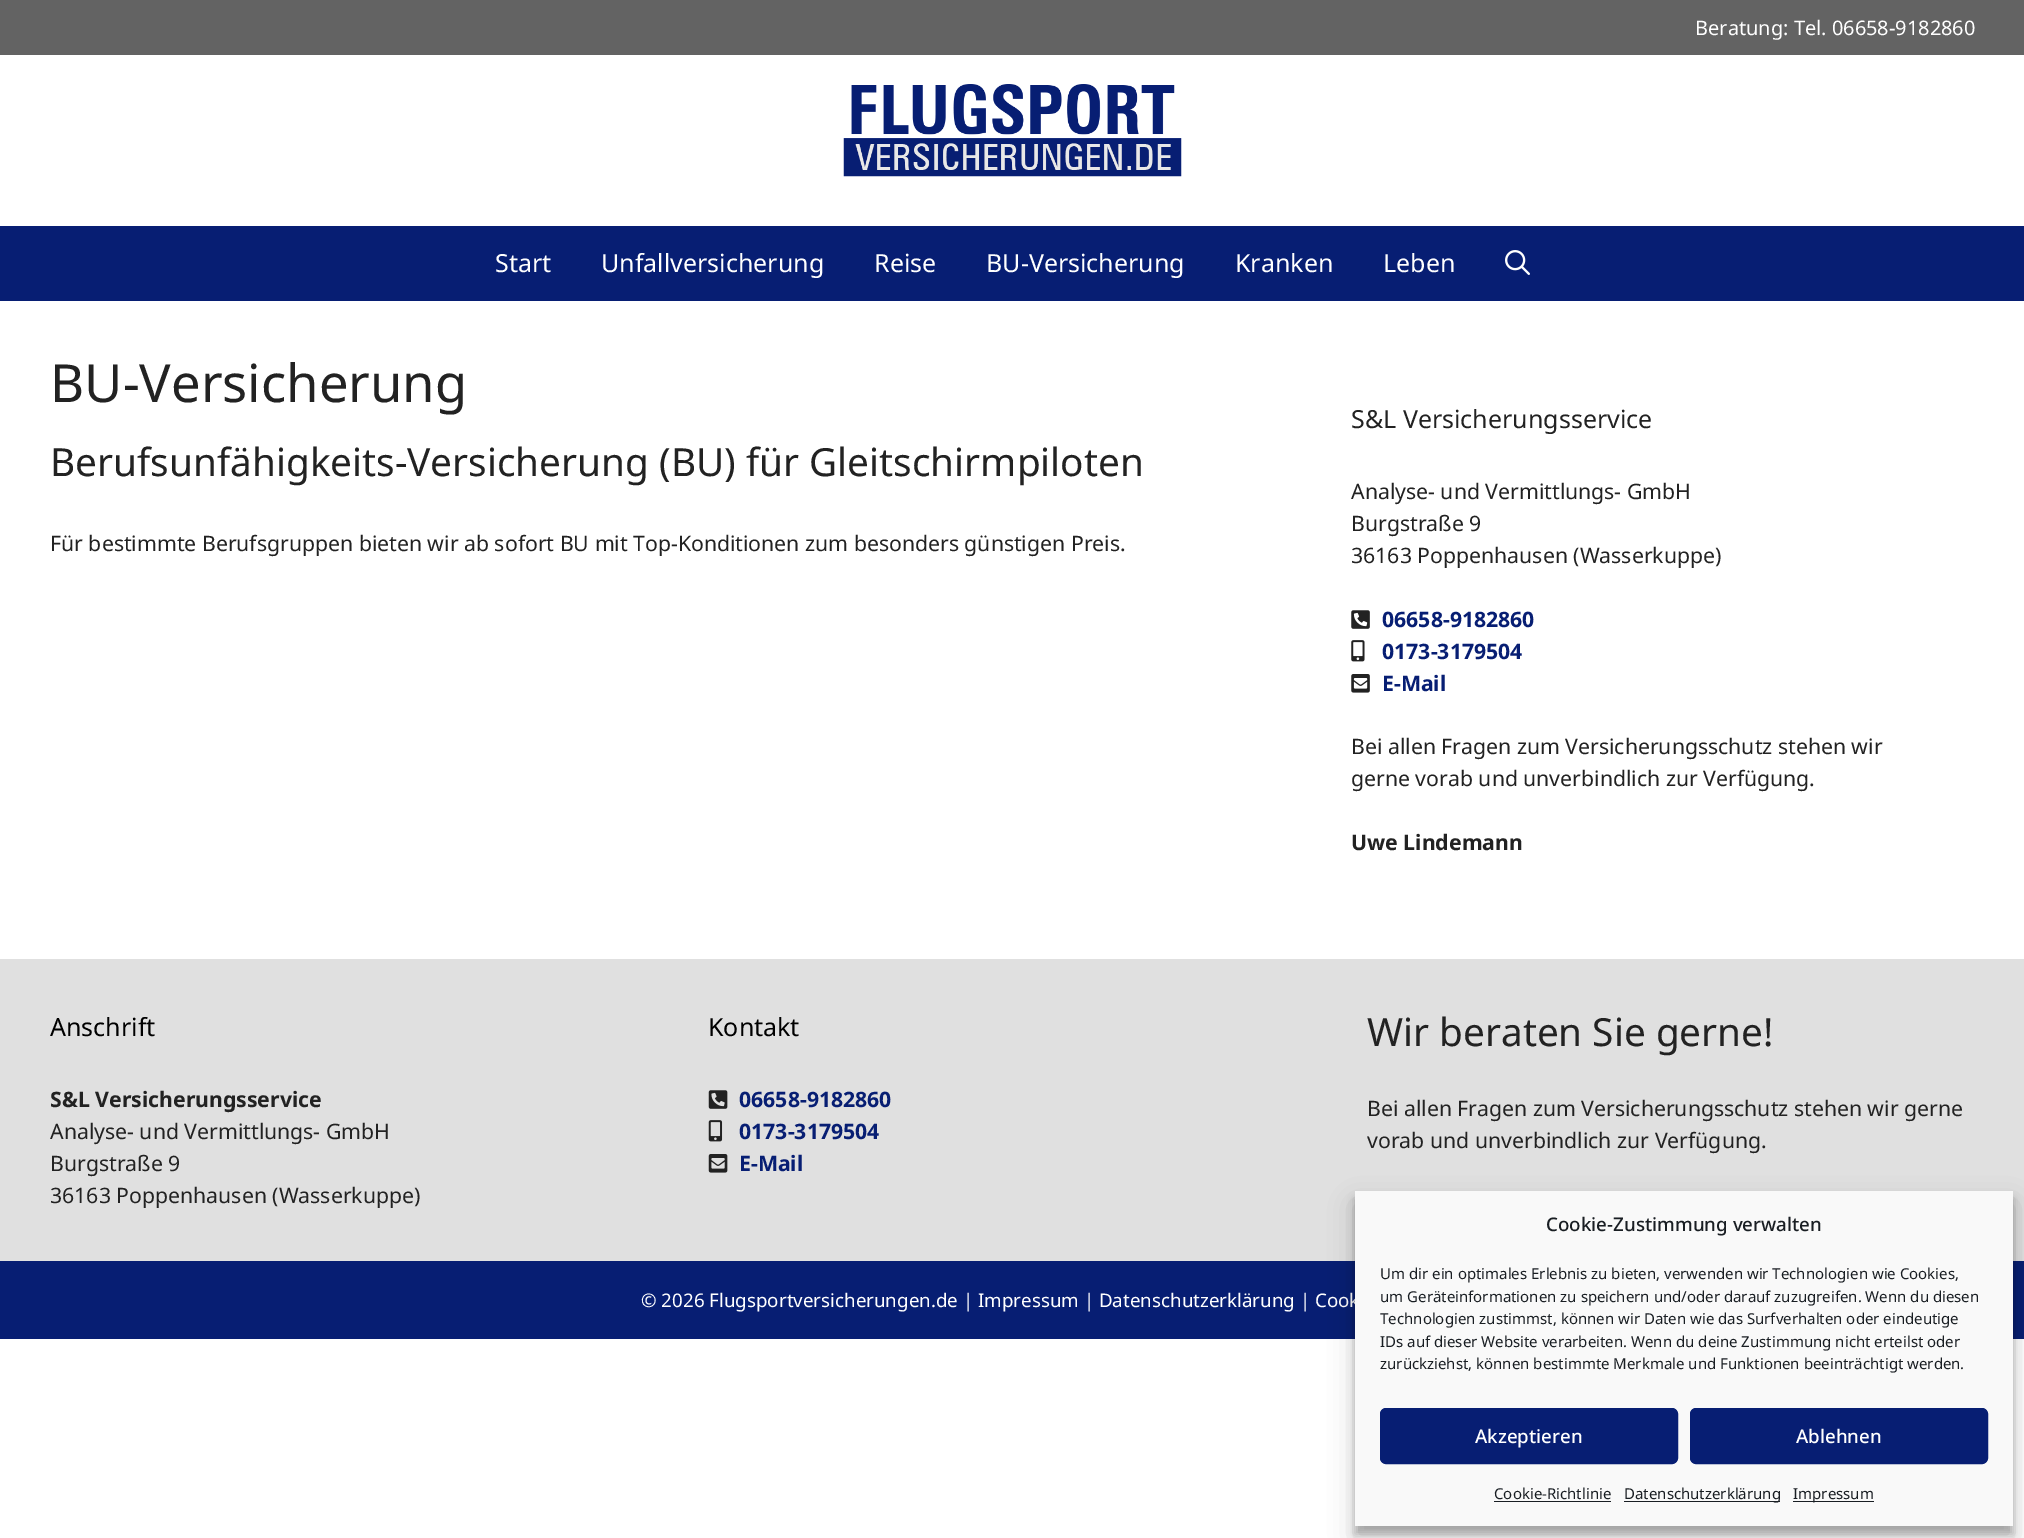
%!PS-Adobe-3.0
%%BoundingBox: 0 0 2024 1538
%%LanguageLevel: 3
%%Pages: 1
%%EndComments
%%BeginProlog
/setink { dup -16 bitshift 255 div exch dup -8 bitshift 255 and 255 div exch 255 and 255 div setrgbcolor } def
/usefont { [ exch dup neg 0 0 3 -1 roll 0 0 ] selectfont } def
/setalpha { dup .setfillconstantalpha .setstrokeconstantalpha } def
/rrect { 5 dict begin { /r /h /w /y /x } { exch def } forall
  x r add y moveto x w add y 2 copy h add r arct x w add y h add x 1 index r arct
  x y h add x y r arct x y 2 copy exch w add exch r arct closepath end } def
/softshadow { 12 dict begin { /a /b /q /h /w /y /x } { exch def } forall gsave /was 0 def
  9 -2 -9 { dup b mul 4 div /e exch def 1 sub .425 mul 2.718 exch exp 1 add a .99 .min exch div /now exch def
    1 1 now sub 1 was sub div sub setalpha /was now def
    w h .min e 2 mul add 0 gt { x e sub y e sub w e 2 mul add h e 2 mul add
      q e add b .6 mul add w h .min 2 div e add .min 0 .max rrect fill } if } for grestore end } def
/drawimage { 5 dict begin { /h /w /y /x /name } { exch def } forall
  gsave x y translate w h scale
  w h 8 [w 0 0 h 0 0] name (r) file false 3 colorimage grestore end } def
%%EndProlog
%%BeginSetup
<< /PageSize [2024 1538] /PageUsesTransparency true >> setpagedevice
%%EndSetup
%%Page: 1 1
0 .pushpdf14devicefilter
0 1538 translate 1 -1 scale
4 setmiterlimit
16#FFFFFF setink
0 0 2024 1538 rectfill
16#636363 setink
0 0 2024 55 rectfill
/NotoSans-Regular 20 usefont
16#FFFFFF setink
1695 35 moveto (Beratung: Tel. 06658-9182860) show
(img1.raw) 843 84 339 93 drawimage
16#071E73 setink
0 226 2024 75 rectfill
/NotoSans-Regular 25 usefont
16#FFFFFF setink
[
    [(Start) 495 272]
    [(Unfallversicherung) 601 272]
    [(Reise) 874 272]
    [(BU-Versicherung) 986 272]
    [(Kranken) 1235 272]
    [(Leben) 1383 272]
] { aload pop moveto show } forall
(img2.raw) 1505 250 25 25 drawimage
/NotoSans-Regular 52.5 usefont
16#222222 setink
50 402 moveto (BU-Versicherung) show
/NotoSans-Regular 38.75 usefont
50 476 moveto (Berufsunfähigkeits-Versicherung \(BU\) für Gleitschirmpiloten) show
/NotoSans-Regular 21.25 usefont
50 551 moveto (Für bestimmte Berufsgruppen bieten wir ab sofort BU mit Top-Konditionen zum besonders günstigen Preis.) show
/NotoSans-Regular 25 usefont
1351 428 moveto (S&L Versicherungsservice) show
/NotoSans-Regular 21.25 usefont
[
    [(Analyse- und Vermittlungs- GmbH) 1351 499]
    [(Burgstraße 9) 1351 531]
    [(36163 Poppenhausen \(Wasserkuppe\)) 1351 563]
] { aload pop moveto show } forall
(img3.raw) 1351 610 19 19 drawimage
/NotoSans-Bold 21.25 usefont
16#071E73 setink
1382 627 moveto (06658-9182860) show
(img4.raw) 1351 640 14 22 drawimage
1382 659 moveto (0173-3179504) show
(img5.raw) 1351 674 19 19 drawimage
1382 691 moveto (E-Mail) show
/NotoSans-Regular 21.25 usefont
16#222222 setink
1351 754 moveto (Bei allen Fragen zum Versicherungsschutz stehen wir) show
1351 786 moveto (gerne vorab und unverbindlich zur Verfügung.) show
/NotoSans-Bold 21.25 usefont
1351 850 moveto (Uwe Lindemann) show
16#E0E0E0 setink
0 959 2024 302 rectfill
/NotoSans-Regular 25 usefont
16#000000 setink
50 1036 moveto (Anschrift) show
/NotoSans-Bold 21.25 usefont
16#222222 setink
50 1107 moveto (S&L Versicherungsservice) show
/NotoSans-Regular 21.25 usefont
[
    [(Analyse- und Vermittlungs- GmbH) 50 1139]
    [(Burgstraße 9) 50 1171]
    [(36163 Poppenhausen \(Wasserkuppe\)) 50 1203]
] { aload pop moveto show } forall
/NotoSans-Regular 25 usefont
16#000000 setink
708 1036 moveto (Kontakt) show
(img6.raw) 708 1090 20 19 drawimage
/NotoSans-Bold 21.25 usefont
16#071E73 setink
739 1107 moveto (06658-9182860) show
(img7.raw) 708 1120 15 22 drawimage
739 1139 moveto (0173-3179504) show
(img8.raw) 708 1154 20 19 drawimage
739 1171 moveto (E-Mail) show
/NotoSans-Regular 38.75 usefont
16#222222 setink
1367 1046 moveto (Wir beraten Sie gerne!) show
/NotoSans-Regular 21.25 usefont
1367 1116 moveto (Bei allen Fragen zum Versicherungsschutz stehen wir gerne) show
1367 1148 moveto (vorab und unverbindlich zur Verfügung.) show
16#071E73 setink
0 1261 2024 78 rectfill
/NotoSans-Regular 18.75 usefont
16#FFFFFF setink
641 1307 moveto (© 2026 Flugsportversicherungen.de | Impressum | Datenschutzerklärung | Cook) show
16#000000 setink
1355 1199 658 335 0 4 0.23 softshadow
1355 1204 658 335 0 12.5 0.19 softshadow
16#F9F9F9 setink
1355 1191 658 335 rectfill
/NotoSans-Medium 18.75 usefont
16#191E23 setink
1546 1231 moveto (Cookie-Zustimmung verwalten) show
/NotoSans-Regular 15 usefont
[
    [(Um dir ein optimales Erlebnis zu bieten, verwenden wir Technologien wie Cookies,) 1380 1279]
    [(um Geräteinformationen zu speichern und/oder darauf zuzugreifen. Wenn du diesen) 1380 1302]
    [(Technologien zustimmst, können wir Daten wie das Surfverhalten oder eindeutige) 1380 1324]
    [(IDs auf dieser Website verarbeiten. Wenn du deine Zustimmung nicht erteilst oder) 1380 1347]
    [(zurückziehst, können bestimmte Merkmale und Funktionen beeinträchtigt werden.) 1380 1369]
] { aload pop moveto show } forall
16#071E73 setink
1380.5 1408.5 297 55 5.5 rrect gsave fill grestore
stroke
/NotoSans-Medium 18.75 usefont
16#FFFFFF setink
1475 1443 moveto (Akzeptieren) show
16#071E73 setink
1690.5 1408.5 297 55 5.5 rrect gsave fill grestore
stroke
16#FFFFFF setink
1796 1443 moveto (Ablehnen) show
/NotoSans-Regular 15 usefont
16#191E23 setink
1494 1499 moveto (Cookie-Richtlinie) show
1494 1501 117 1 rectfill
1624 1501 156 1 rectfill
1624 1499 moveto (Datenschutzerklärung) show
1793 1501 81 1 rectfill
1793 1499 moveto (Impressum) show
.poppdf14devicefilter showpage
%%EOF
